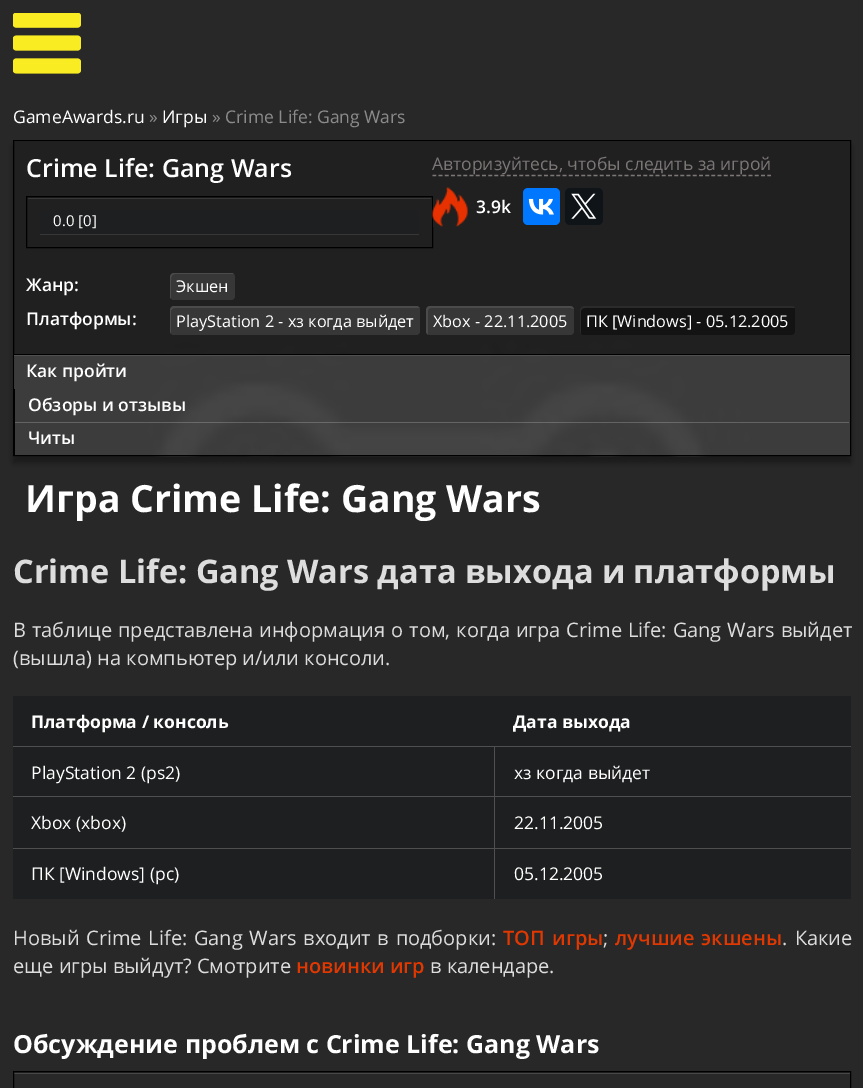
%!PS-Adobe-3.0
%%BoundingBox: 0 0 863 1088
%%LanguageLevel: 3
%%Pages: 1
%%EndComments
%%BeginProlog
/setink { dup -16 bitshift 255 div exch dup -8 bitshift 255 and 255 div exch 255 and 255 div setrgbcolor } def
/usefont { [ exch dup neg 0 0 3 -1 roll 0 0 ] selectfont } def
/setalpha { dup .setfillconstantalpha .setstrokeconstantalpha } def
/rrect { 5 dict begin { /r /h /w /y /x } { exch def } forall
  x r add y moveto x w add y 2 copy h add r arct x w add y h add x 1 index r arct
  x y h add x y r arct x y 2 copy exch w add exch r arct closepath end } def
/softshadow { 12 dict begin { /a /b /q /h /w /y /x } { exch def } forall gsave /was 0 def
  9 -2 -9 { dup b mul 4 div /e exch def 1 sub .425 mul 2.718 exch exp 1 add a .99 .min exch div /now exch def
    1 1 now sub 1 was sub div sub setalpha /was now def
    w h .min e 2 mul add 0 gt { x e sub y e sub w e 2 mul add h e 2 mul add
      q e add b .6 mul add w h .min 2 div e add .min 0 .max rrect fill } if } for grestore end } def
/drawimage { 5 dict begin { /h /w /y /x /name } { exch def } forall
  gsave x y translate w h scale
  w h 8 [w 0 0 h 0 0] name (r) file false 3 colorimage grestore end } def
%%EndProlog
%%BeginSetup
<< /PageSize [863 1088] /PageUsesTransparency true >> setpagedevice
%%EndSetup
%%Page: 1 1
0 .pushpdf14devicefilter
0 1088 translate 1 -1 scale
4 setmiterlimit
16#282828 setink
0 0 863 1088 rectfill
(img1.raw) 13 13 68 61 drawimage
/OpenSans-Regular 17.5 usefont
16#FFFFFF setink
13 123 moveto (GameAwards.ru) show
16#8B8B8B setink
149 123 moveto (») show
16#FFFFFF setink
162 123 moveto (Игры) show
16#8B8B8B setink
212 123 moveto (» Crime Life: Gang Wars) show
16#000000 setink
13 146 838 317 0 3 0.35 softshadow
(img2.raw) 13 142 838 315 drawimage
16#2A2A2A setink
14 141 836 1 rectfill
16#000000 setink
13.5 140.5 837 315 rectstroke
/OpenSans-SemiBold 25 usefont
16#FFFFFF setink
26 177 moveto (Crime Life: Gang Wars) show
16#373737 setink
28 198 403 1 rectfill
16#000000 setink
26.5 196.5 406 51 rectstroke
16#373737 setink
40 234 moveto 40 235 lineto 419 235 lineto 419 211 lineto 419 234 lineto closepath fill
16#1D1F20 setink
40 210 379 24 rectfill
/OpenSans-Regular 15 usefont
16#FFFFFF setink
53 226 moveto (0.0 [0]) show
16#7C7676 setink
1.2 setlinewidth
[3.75 2.45] 0 setdash
432.5 175.5 moveto 771 175.5 lineto stroke
/OpenSans-Regular 17.5 usefont
432 170 moveto (Авторизуйтесь, чтобы следить за игрой) show
(img3.raw) 432 187 36 40 drawimage
/OpenSans-SemiBold 17.5 usefont
16#FFFFFF setink
476 213 moveto (3.9k) show
16#0077FF setink
523 188 37 37 5 rrect fill
(img4.raw) 528 198 26 17 drawimage
16#0F1419 setink
565 188 38 37 5 rrect fill
(img5.raw) 571 193 26 26 drawimage
16#FFFFFF setink
26 291 moveto (Жанр:) show
16#373737 setink
170 273 65 27 4 rrect fill
0.1 setalpha
16#FFFFFF setink
175 274 moveto 234 274 lineto 233 273 232 273 231 273 curveto 174 273 lineto 172 273 170 275 170 277 curveto 170 296 lineto 170 297 170 298 171 299 curveto 171 281 lineto 171 278 171 274 175 274 curveto closepath fill
/OpenSans-Regular 16.25 usefont
1 setalpha
176 292 moveto (Экшен) show
/OpenSans-SemiBold 17.5 usefont
26 325 moveto (Платформы:) show
16#373737 setink
170 306 250 29 4 rrect fill
0.1 setalpha
16#FFFFFF setink
175 308 moveto 420 308 lineto 419 307 418 306 416 306 curveto 174 306 lineto 172 306 170 308 170 310 curveto 170 331 lineto 170 332 171 333 171 334 curveto 171 332 lineto 171 311 lineto 171 309 173 308 175 308 curveto closepath fill
/OpenSans-Regular 16.25 usefont
1 setalpha
176 327 moveto (PlayStation 2 - хз когда выйдет) show
16#373737 setink
426 306 148 29 4 rrect fill
0.1 setalpha
16#FFFFFF setink
431 308 moveto 571 308 lineto 574 309 lineto 573 307 572 306 570 306 curveto 430 306 lineto 428 306 426 308 426 310 curveto 426 331 lineto 426 333 427 334 428 335 curveto 428 332 lineto 428 311 lineto 428 309 429 308 431 308 curveto closepath fill
1 setalpha
433 327 moveto (Xbox - 22.11.2005) show
16#131313 setink
580 306 215 29 4 rrect fill
0.1 setalpha
16#FFFFFF setink
585 308 moveto 792 308 lineto 795 308 lineto 794 307 793 306 791 306 curveto 584 306 lineto 582 306 580 308 580 310 curveto 580 331 lineto 580 332 581 333 581 334 curveto 581 332 lineto 581 311 lineto 581 309 583 308 585 308 curveto closepath fill
1 setalpha
586 327 moveto (ПК [Windows] - 05.12.2005) show
0.6 setalpha
[
    [14 356 836 99 16#4F4F4F]
] { aload pop setink rectfill } forall
1 setalpha
[
    [14 355 836 1 16#505050]
    [14 354 836 1 16#000000]
] { aload pop setink rectfill } forall
/OpenSans-SemiBold 17.5 usefont
16#FFFFFF setink
26 377 moveto (Как пройти) show
gsave
14 141 836 314 rectclip
0.2 setalpha
13 389 moveto 13 423 lineto 849 423 lineto 849 422 lineto 14 422 lineto 14 389 lineto closepath fill
grestore
16#000000 setink
14 389 1 66 rectfill
16#FFFFFF setink
28 411 moveto (Обзоры и отзывы) show
28 444 moveto (Читы) show
/OpenSans-Bold 37.5 usefont
25 512 moveto (Игра Crime Life: Gang Wars) show
/OpenSans-Bold 32.5 usefont
16#DDDDDD setink
13 583 moveto (Crime Life: Gang Wars дата выхода и платформы) show
/OpenSans-Regular 20 usefont
13 637 moveto 0.75 0 32 (В таблице представлена информация о том, когда игра Crime Life: Gang Wars выйдет) widthshow
13 665 moveto (\(вышла\) на компьютер и/или консоли.) show
16#1D1F20 setink
13 696 838 203 rectfill
/OpenSans-Bold 17.5 usefont
16#FFFFFF setink
31 728 moveto (Платформа / консоль) show
[
    [494 848 1 51 16#4F4F4F]
    [494 848 357 1 16#4F4F4F]
    [494 796 1 53 16#4F4F4F]
    [494 796 357 1 16#4F4F4F]
    [494 746 1 52 16#4F4F4F]
    [13 746 838 1 16#4F4F4F]
] { aload pop setink rectfill } forall
16#FFFFFF setink
513 728 moveto (Дата выхода) show
16#4F4F4F setink
13 796 482 1 rectfill
/OpenSans-Regular 17.5 usefont
16#FFFFFF setink
31 779 moveto (PlayStation 2 \(ps2\)) show
514 779 moveto (хз когда выйдет) show
16#4F4F4F setink
13 848 482 1 rectfill
16#FFFFFF setink
[
    [(Xbox \(xbox\)) 31 829]
    [(22.11.2005) 514 829]
    [(ПК [Windows] \(pc\)) 31 880]
    [(05.12.2005) 514 880]
] { aload pop moveto show } forall
/OpenSans-Regular 20 usefont
16#DDDDDD setink
13 945 moveto 1.5 0 32 (Новый Crime Life: Gang Wars входит в подборки:) widthshow
/OpenSans-SemiBold 20 usefont
16#E03800 setink
503 945 moveto 2 0 32 (ТОП игры) widthshow
/OpenSans-Regular 20 usefont
16#DDDDDD setink
603 945 moveto (;) show
/OpenSans-SemiBold 20 usefont
16#E03800 setink
615 945 moveto 2 0 32 (лучшие экшены) widthshow
/OpenSans-Regular 20 usefont
16#DDDDDD setink
782 945 moveto 2 0 32 (. Какие) widthshow
13 973 moveto (еще игры выйдут? Смотрите) show
/OpenSans-SemiBold 20 usefont
16#E03800 setink
296 973 moveto (новинки игр) show
/OpenSans-Regular 20 usefont
16#DDDDDD setink
430 973 moveto (в календаре.) show
/OpenSans-Bold 25 usefont
16#FFFFFF setink
13 1053 moveto (Обсуждение проблем с Crime Life: Gang Wars) show
16#484848 setink
14 1073 836 1 rectfill
16#000000 setink
1 setlinewidth
[] 0 setdash
13.5 1071.5 837 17 rectstroke
.poppdf14devicefilter showpage
%%EOF
